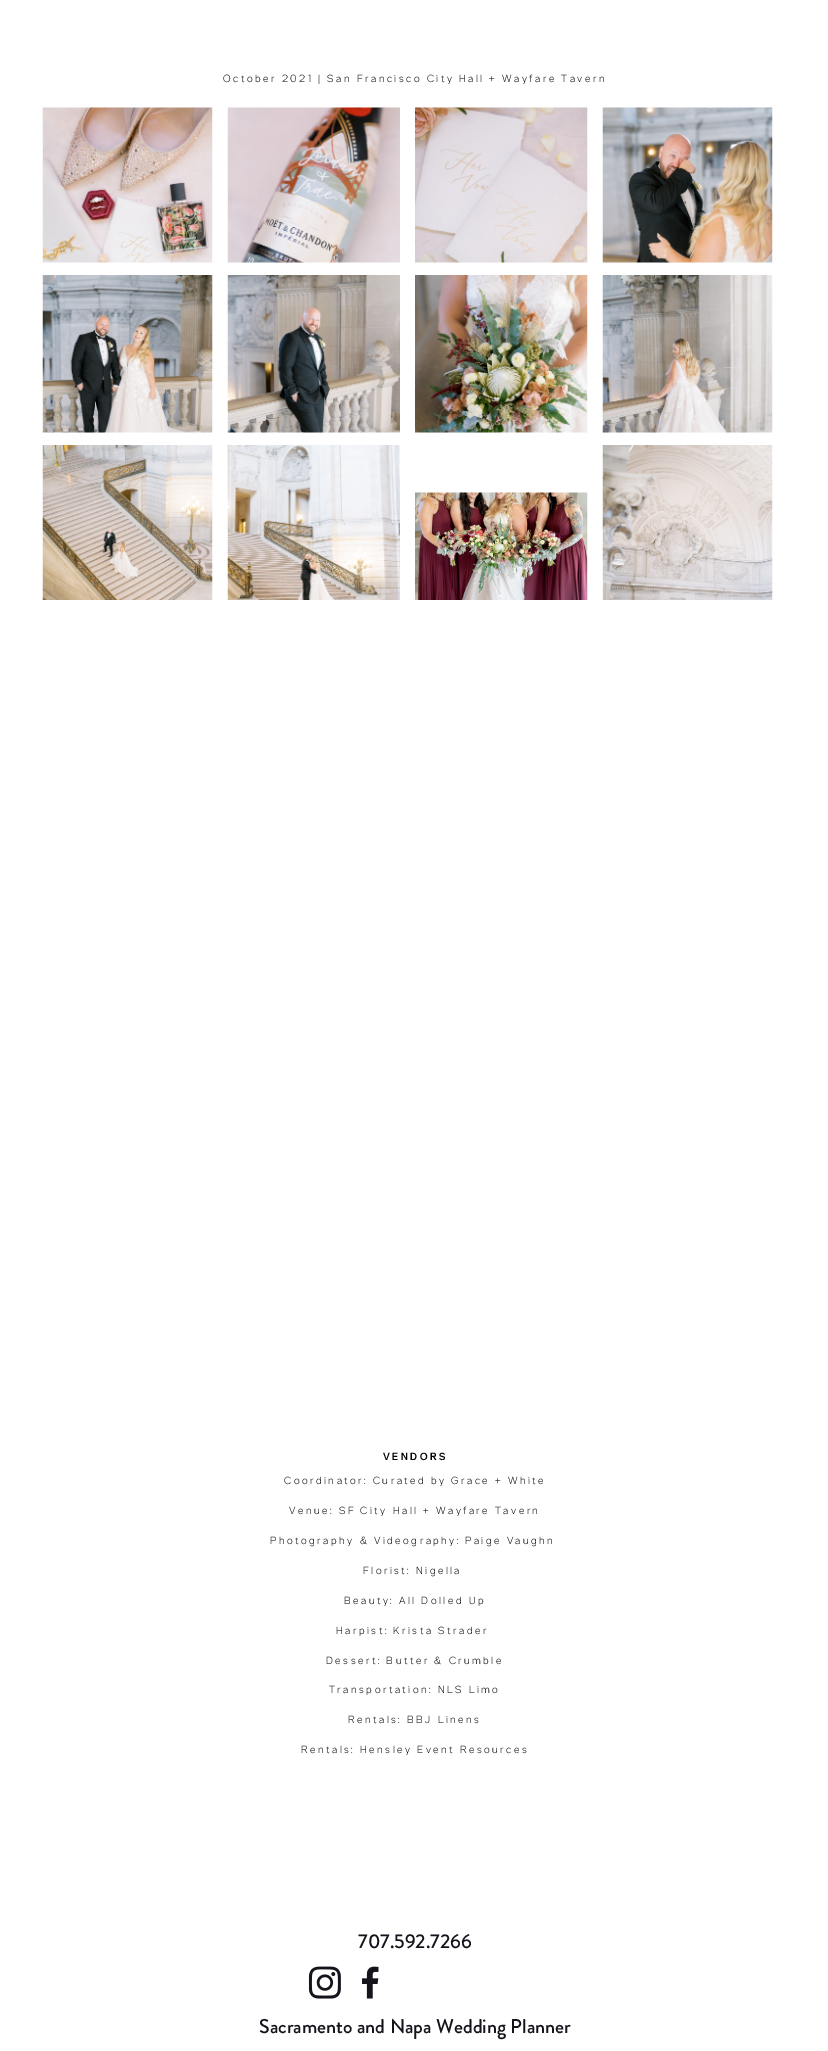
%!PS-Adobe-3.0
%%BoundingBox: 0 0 828 2051
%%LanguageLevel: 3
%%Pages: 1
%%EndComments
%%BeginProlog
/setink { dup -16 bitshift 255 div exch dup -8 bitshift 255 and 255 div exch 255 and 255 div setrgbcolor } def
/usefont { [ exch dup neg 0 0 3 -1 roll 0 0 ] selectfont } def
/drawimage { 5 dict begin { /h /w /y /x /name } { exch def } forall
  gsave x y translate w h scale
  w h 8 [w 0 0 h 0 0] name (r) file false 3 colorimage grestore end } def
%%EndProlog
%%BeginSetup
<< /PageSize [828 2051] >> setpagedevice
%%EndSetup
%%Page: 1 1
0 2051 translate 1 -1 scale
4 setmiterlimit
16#FFFFFF setink
0 0 828 2051 rectfill
/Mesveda-Regular 9.95 usefont
16#000000 setink
223 82 moveto 2.5 0 (October 2021 | San Francisco City Hall + Wayfare Tavern) ashow
(img1.raw) 42 107 171 156 drawimage
(img2.raw) 227 107 173 156 drawimage
(img3.raw) 415 107 173 156 drawimage
(img4.raw) 602 107 171 156 drawimage
(img5.raw) 42 275 171 158 drawimage
(img6.raw) 227 275 173 158 drawimage
(img7.raw) 415 275 173 158 drawimage
(img8.raw) 602 275 171 158 drawimage
(img9.raw) 42 445 171 155 drawimage
(img10.raw) 227 445 173 155 drawimage
(img11.raw) 415 492 173 108 drawimage
(img12.raw) 602 445 171 155 drawimage
/Mesveda-Bold 9.95 usefont
383 1460 moveto 2.5 0 (VENDORS) ashow
/Mesveda-Regular 9.95 usefont
284 1484 moveto 2.5 0 (Coordinator: Curated by Grace + White) ashow
289 1514 moveto 2.5 0 (Venue: SF City Hall + Wayfare Tavern) ashow
270 1544 moveto 2.5 0 (Photography & Videography:) ashow
465 1544 moveto 2.5 0 (Paige Vaughn) ashow
363 1574 moveto 2.5 0 (Florist: Nigella) ashow
344 1604 moveto 2.5 0 (Beauty: All Dolled Up) ashow
336 1634 moveto 2.5 0 (Harpist: Krista Strader) ashow
326 1664 moveto 2.5 0 (Dessert: Butter & Crumble) ashow
329 1693 moveto 2.5 0 (Transportation: NLS Limo) ashow
348 1723 moveto 2.5 0 (Rentals: BBJ Linens) ashow
301 1753 moveto 2.5 0 (Rentals: Hensley Event Resources) ashow
/BrandonGrotesque-Medium 19.9 usefont
16#14141C setink
358 1948 moveto (707.592.7266) show
(img13.raw) 308 1966 33 33 drawimage
(img14.raw) 362 1966 17 33 drawimage
259 2033 moveto (Sacramento and Napa Wedding Planner) show
showpage
%%EOF
